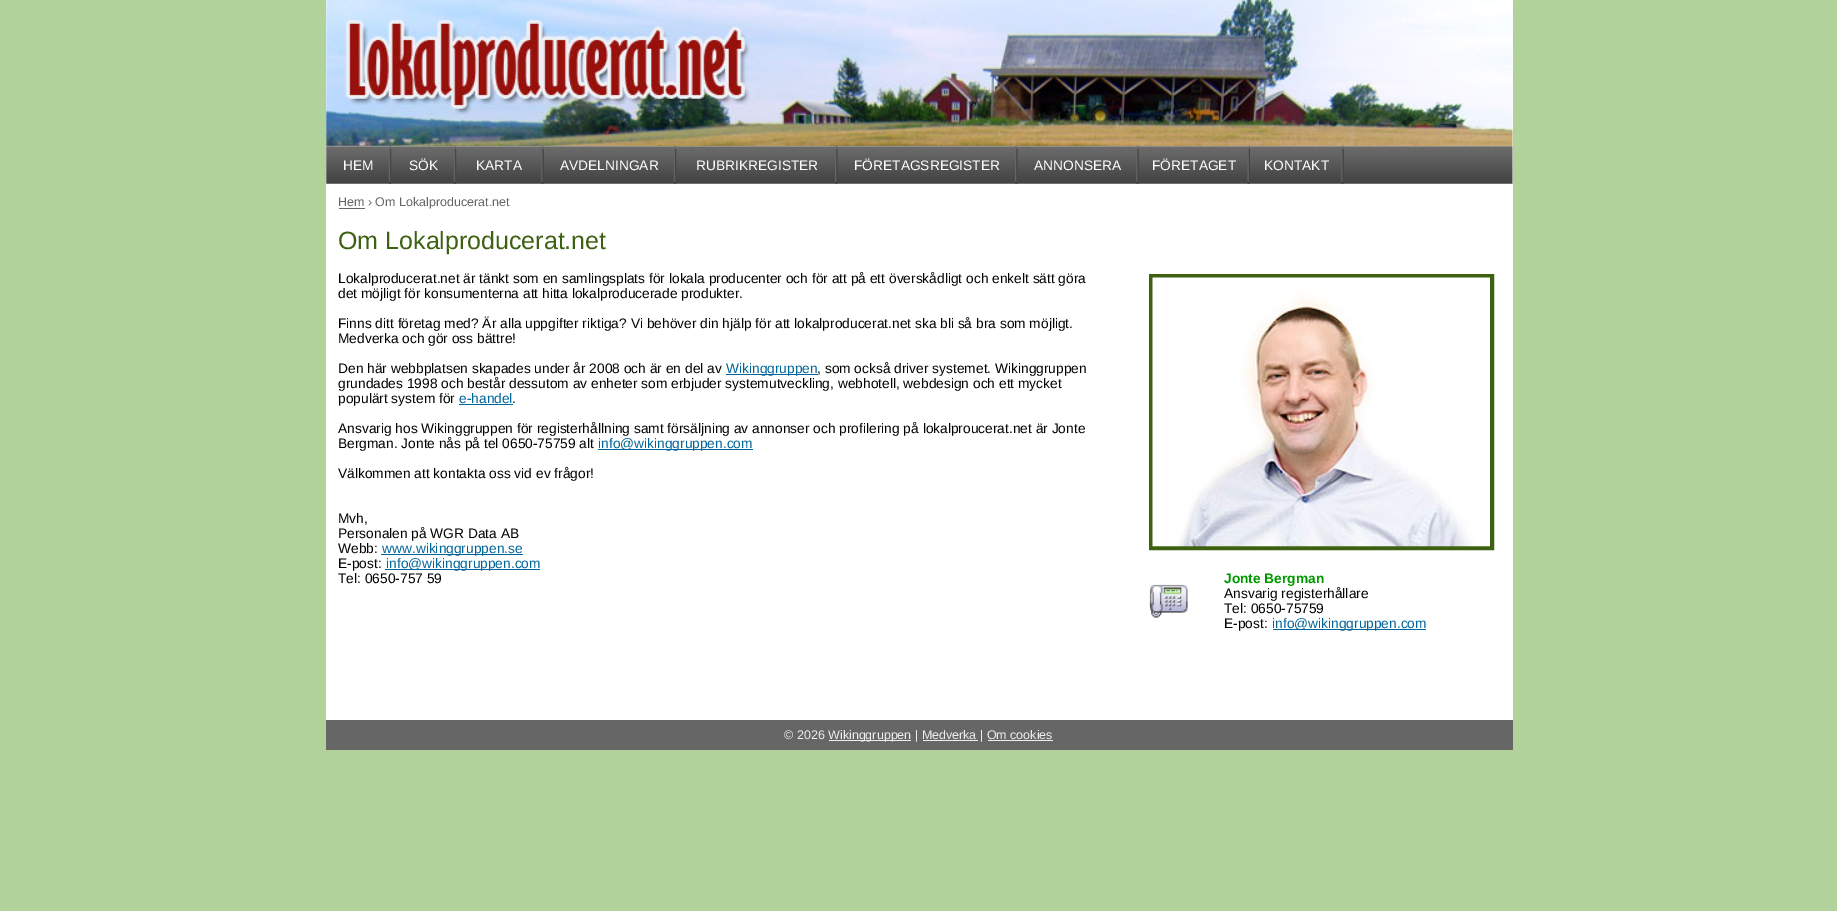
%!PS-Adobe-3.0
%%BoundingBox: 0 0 1837 911
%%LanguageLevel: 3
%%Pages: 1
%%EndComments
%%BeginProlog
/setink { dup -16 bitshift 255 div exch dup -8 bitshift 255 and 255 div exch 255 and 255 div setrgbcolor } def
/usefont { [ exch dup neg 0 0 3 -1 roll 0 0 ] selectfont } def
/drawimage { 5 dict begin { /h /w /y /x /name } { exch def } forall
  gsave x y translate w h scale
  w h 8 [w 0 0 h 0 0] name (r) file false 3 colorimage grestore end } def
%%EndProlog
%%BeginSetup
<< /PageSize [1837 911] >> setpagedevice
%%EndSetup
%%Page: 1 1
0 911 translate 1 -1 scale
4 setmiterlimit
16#B1D29B setink
0 0 1837 911 rectfill
16#FFFFFF setink
326 0 1187 146 rectfill
(img1.raw) 326 0 1187 146 drawimage
326 146 1187 574 rectfill
(img2.raw) 326 146 1187 38 drawimage
(img3.raw) 388 146 4 38 drawimage
/LiberationSans-Regular 13.75 usefont
343 170 moveto (HEM) show
(img4.raw) 453 146 4 38 drawimage
409 170 moveto (SÖK) show
(img5.raw) 541 146 3 38 drawimage
476 170 moveto (KARTA) show
(img4.raw) 673 146 4 38 drawimage
560 170 moveto (AVDELNINGAR) show
(img6.raw) 835 146 3 38 drawimage
696 170 moveto (RUBRIKREGISTER) show
(img6.raw) 1015 146 3 38 drawimage
854 170 moveto (FÖRETAGSREGISTER) show
(img7.raw) 1136 146 3 38 drawimage
1034 170 moveto (ANNONSERA) show
(img8.raw) 1247 146 3 38 drawimage
1152 170 moveto (FÖRETAGET) show
(img9.raw) 1341 146 3 38 drawimage
1264 170 moveto (KONTAKT) show
16#666666 setink
339 208 26 1 rectfill
/LiberationSans-Regular 12.5 usefont
338 206 moveto (Hem › Om Lokalproducerat.net) show
/LiberationSans-Regular 25 usefont
16#3E6111 setink
338 249 moveto (Om Lokalproducerat.net) show
/LiberationSans-Regular 13.75 usefont
16#000000 setink
[
    [(Lokalproducerat.net är tänkt som en samlingsplats för lokala producenter och för att på ett överskådligt och enkelt sätt göra) 338 283]
    [(det möjligt för konsumenterna att hitta lokalproducerade produkter.) 338 298]
    [(Finns ditt företag med? Är alla uppgifter riktiga? Vi behöver din hjälp för att lokalproducerat.net ska bli så bra som möjligt.) 338 328]
    [(Medverka och gör oss bättre!) 338 343]
    [(Den här webbplatsen skapades under år 2008 och är en del av) 338 373]
] { aload pop moveto show } forall
16#006599 setink
726 374 92 1 rectfill
726 373 moveto (Wikinggruppen) show
16#000000 setink
[
    [(, som också driver systemet. Wikinggruppen) 817 373]
    [(grundades 1998 och består dessutom av enheter som erbjuder systemutveckling, webhotell, webdesign och ett mycket) 338 388]
    [(populärt system för) 338 403]
] { aload pop moveto show } forall
16#006599 setink
459 403 moveto (e-handel) show
16#000000 setink
512 403 moveto (.) show
16#006599 setink
459 404 54 1 rectfill
16#000000 setink
338 433 moveto (Ansvarig hos Wikinggruppen för registerhållning samt försäljning av annonser och profilering på lokalproucerat.net är Jonte) show
338 448 moveto (Bergman. Jonte nås på tel 0650-75759 alt) show
16#006599 setink
598 449 155 1 rectfill
598 448 moveto (info@wikinggruppen.com) show
16#000000 setink
[
    [(Välkommen att kontakta oss vid ev frågor!) 338 478]
    [(Mvh,) 338 523]
    [(Personalen på WGR Data AB) 338 538]
    [(Webb:) 338 553]
] { aload pop moveto show } forall
16#006599 setink
381 554 142 1 rectfill
382 553 moveto (www.wikinggruppen.se) show
16#000000 setink
338 568 moveto (E-post:) show
16#006599 setink
385 569 155 1 rectfill
386 568 moveto (info@wikinggruppen.com) show
16#000000 setink
338 583 moveto (Tel: 0650-757 59) show
16#3E6111 setink
4 setlinewidth
1151 276 341 272 rectstroke
(img10.raw) 1152 277 338 270 drawimage
(img11.raw) 1149 584 39 34 drawimage
/LiberationSans-Bold 13.75 usefont
16#009900 setink
1224 583 moveto (Jonte Bergman) show
/LiberationSans-Regular 13.75 usefont
16#000000 setink
[
    [(Ansvarig registerhållare) 1224 598]
    [(Tel: 0650-75759) 1224 613]
    [(E-post:) 1224 628]
] { aload pop moveto show } forall
16#006599 setink
1273 629 153 1 rectfill
1272 628 moveto (info@wikinggruppen.com) show
16#666666 setink
326 720 1187 30 rectfill
/LiberationSans-Regular 12.5 usefont
16#EEEEEE setink
784 739 moveto (© 2026) show
829 740 82 1 rectfill
828 739 moveto (Wikinggruppen | Medverka | Om cookies) show
923 740 55 1 rectfill
988 740 65 1 rectfill
showpage
%%EOF
